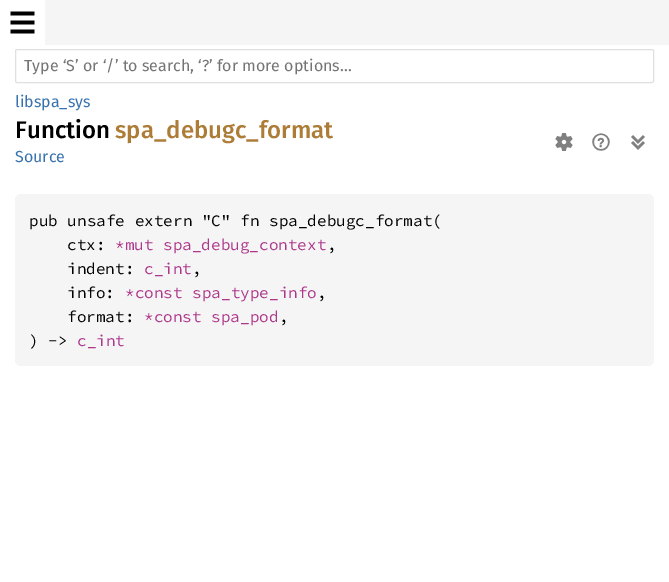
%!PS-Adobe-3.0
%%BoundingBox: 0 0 669 582
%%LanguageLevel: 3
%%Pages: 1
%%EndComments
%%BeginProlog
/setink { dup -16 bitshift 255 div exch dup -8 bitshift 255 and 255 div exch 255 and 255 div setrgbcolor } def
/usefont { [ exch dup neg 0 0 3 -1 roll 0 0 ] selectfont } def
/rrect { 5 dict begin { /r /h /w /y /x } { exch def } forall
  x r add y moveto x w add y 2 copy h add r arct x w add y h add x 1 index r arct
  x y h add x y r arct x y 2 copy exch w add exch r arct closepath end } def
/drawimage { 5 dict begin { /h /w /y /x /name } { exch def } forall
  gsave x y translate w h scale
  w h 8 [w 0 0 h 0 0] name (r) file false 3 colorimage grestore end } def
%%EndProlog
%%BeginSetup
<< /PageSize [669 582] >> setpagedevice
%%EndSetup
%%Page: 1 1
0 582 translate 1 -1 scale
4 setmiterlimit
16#FFFFFF setink
0 0 669 582 rectfill
16#F5F5F5 setink
45 0 624 45 rectfill
(img1.raw) 10 11 25 23 drawimage
16#E0E0E0 setink
15.5 49.5 638 33 1.5 rrect stroke
/FiraSans-Regular 16 usefont
16#757575 setink
24 71 moveto (Type ‘S’ or ‘/’ to search, ‘?’ for more options…) show
16#3873AD setink
15 107 moveto (libspa_sys) show
/FiraSans-Medium 24 usefont
16#000000 setink
15 138 moveto (Function) show
16#AD7C37 setink
115 138 moveto (spa_debugc_format) show
(img2.raw) 555 133 18 18 drawimage
(img3.raw) 592 133 18 18 drawimage
(img4.raw) 631 135 14 15 drawimage
/FiraSans-Regular 16 usefont
16#3873AD setink
15 162 moveto (Source) show
16#F5F5F5 setink
15 194 639 172 6 rrect fill
/SourceCodePro-Regular 16 usefont
16#000000 setink
29 226 moveto (pub unsafe extern "C" fn spa_debugc_format\() show
67 250 moveto (ctx:) show
16#AD378A setink
115 250 moveto (*mut spa_debug_context) show
16#000000 setink
327 250 moveto (,) show
67 274 moveto (indent:) show
16#AD378A setink
144 274 moveto (c_int) show
16#000000 setink
192 274 moveto (,) show
67 298 moveto (info:) show
16#AD378A setink
125 298 moveto (*const spa_type_info) show
16#000000 setink
317 298 moveto (,) show
67 322 moveto (format:) show
16#AD378A setink
144 322 moveto (*const spa_pod) show
16#000000 setink
279 322 moveto (,) show
29 346 moveto (\) ->) show
16#AD378A setink
77 346 moveto (c_int) show
showpage
%%EOF
